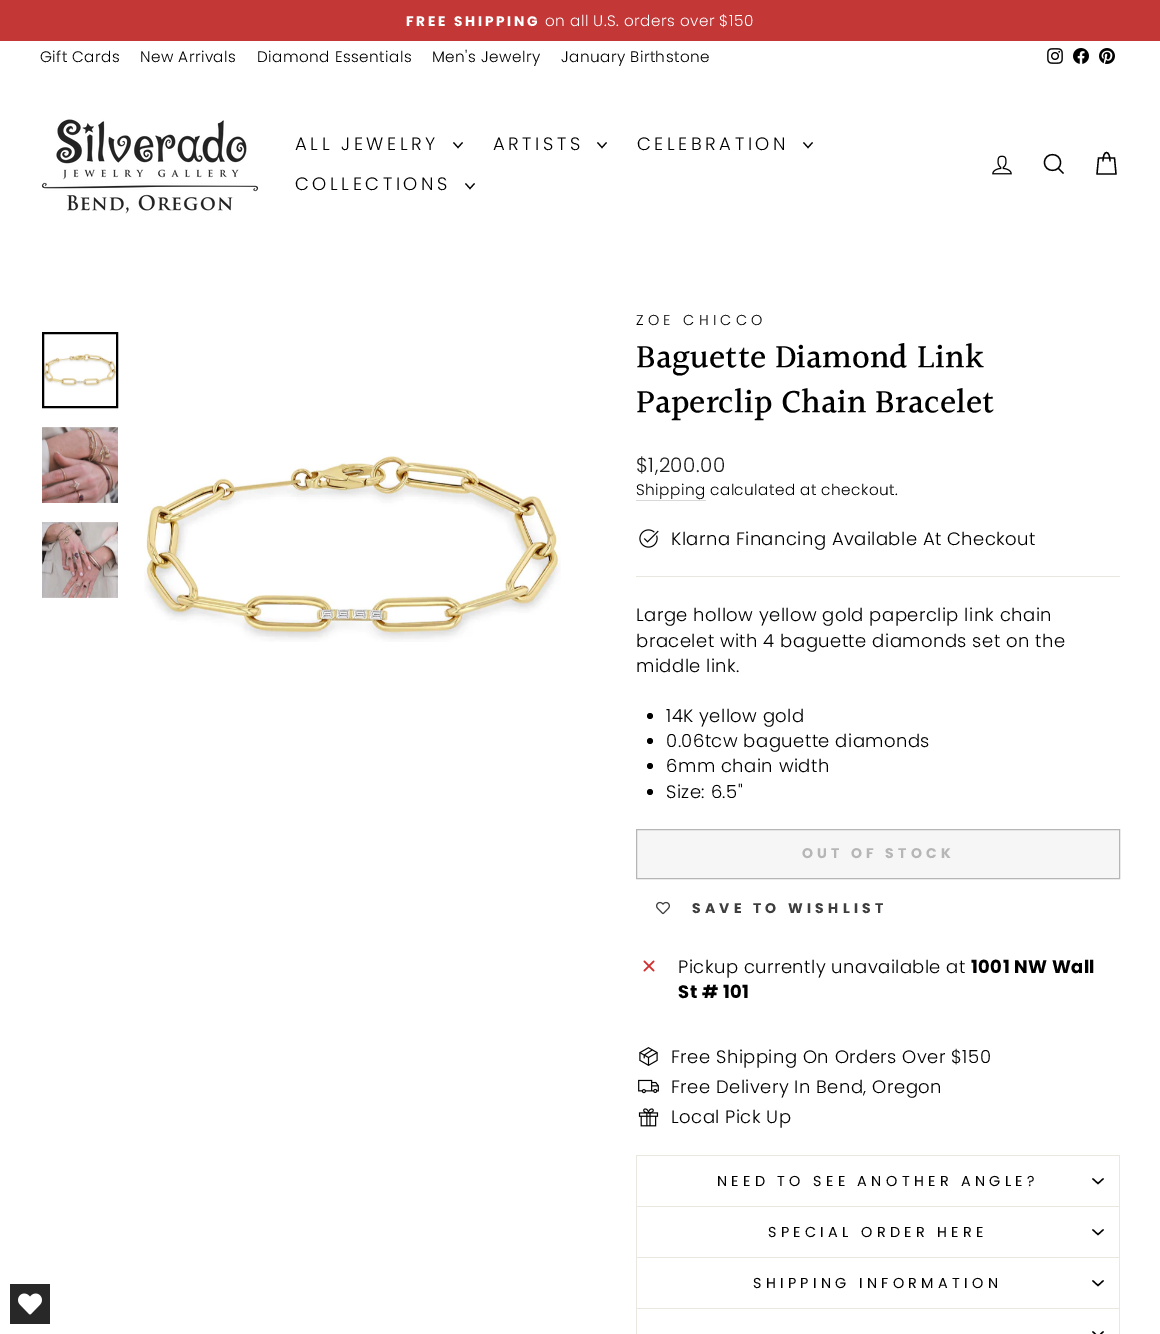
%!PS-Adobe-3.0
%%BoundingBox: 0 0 1160 1334
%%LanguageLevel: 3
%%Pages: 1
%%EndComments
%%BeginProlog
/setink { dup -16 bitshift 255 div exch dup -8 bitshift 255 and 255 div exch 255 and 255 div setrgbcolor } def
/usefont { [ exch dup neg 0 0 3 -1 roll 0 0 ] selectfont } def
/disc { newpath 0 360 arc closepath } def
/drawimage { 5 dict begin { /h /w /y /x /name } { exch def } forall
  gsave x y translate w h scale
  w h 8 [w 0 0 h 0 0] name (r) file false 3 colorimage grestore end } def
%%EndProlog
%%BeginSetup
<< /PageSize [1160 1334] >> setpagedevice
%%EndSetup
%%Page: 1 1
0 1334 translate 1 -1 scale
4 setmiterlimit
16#FFFFFF setink
0 0 1160 1334 rectfill
16#C43737 setink
0 0 1160 41 rectfill
/Poppins-Bold 13.75 usefont
16#FFFFFF setink
406 26 moveto 2.75 0 (FREE SHIPPING) ashow
/Poppins-Light 15.25 usefont
545 26 moveto 0.45 0 (on all U.S. orders over $150) ashow
16#000000 setink
40 62 moveto 0.45 0 (Gift Cards) ashow
140 62 moveto 0.45 0 (New Arrivals) ashow
257 62 moveto 0.45 0 (Diamond Essentials) ashow
432 62 moveto 0.45 0 (Men's Jewelry) ashow
561 62 moveto 0.45 0 (January Birthstone) ashow
(img1.raw) 1047 48 16 16 drawimage
(img2.raw) 1073 48 16 16 drawimage
(img3.raw) 1099 48 16 16 drawimage
(img4.raw) 41 119 218 95 drawimage
/Poppins-Light 18 usefont
295 150 moveto 3.6 0 (ALL JEWELRY) ashow
1.1 setlinewidth
453.5 142.5 moveto 458 147.5 lineto 462.5 142.5 lineto stroke
493 150 moveto 3.6 0 (ARTISTS) ashow
597.5 142.5 moveto 602 147.5 lineto 606.5 142.5 lineto stroke
637 150 moveto 3.6 0 (CELEBRATION) ashow
803.5 142.5 moveto 808 147.5 lineto 812.5 142.5 lineto stroke
295 190 moveto 3.6 0 (COLLECTIONS) ashow
465.5 183.5 moveto 470 188.5 lineto 474.5 183.5 lineto stroke
(img5.raw) 992 155 20 20 drawimage
1.3 setlinewidth
1060.5 162.5 moveto 1060.5 173 1044.5 173 1044.5 162.5 curveto 1044.5 152 1060.5 152 1060.5 162.5 curveto closepath 1063.5 173.5 moveto 1058.5 168.5 lineto stroke
1103 161.5 moveto 1103 149.5 1110 149.5 1110 161.5 curveto 1098.5 158 moveto 1114.5 158 lineto 1116 174 lineto 1097 174 lineto closepath stroke
(img6.raw) 44 353 72 34 drawimage
2 setlinewidth
43 333 74 74 rectstroke
(img7.raw) 42 427 76 76 drawimage
(img8.raw) 42 522 76 76 drawimage
(img9.raw) 144 455 417 187 drawimage
/Poppins-Light 14.4 usefont
636 325 moveto 4.3 0 (ZOE CHICCO) ashow
/Halant-Medium 34 usefont
636 369 moveto (Baguette Diamond Link) show
636 414 moveto (Paperclip Chain Bracelet) show
/Poppins-Light 20 usefont
16#1C1D1D setink
636 472 moveto 0.45 0 ($1,200.00) ashow
16#D9D9D9 setink
636 500 70 1 rectfill
/Poppins-Light 15.25 usefont
16#000000 setink
636 495 moveto 0.45 0 (Shipping) ashow
710 495 moveto 0.45 0 (calculated at checkout.) ashow
(img10.raw) 639 529 20 19 drawimage
/Poppins-Light 18 usefont
671 545 moveto 0.45 0 (Klarna Financing Available At Checkout) ashow
16#E8E8E1 setink
636 576 484 1 rectfill
16#000000 setink
636 621 moveto 0.45 0 (Large hollow yellow gold paperclip link chain) ashow
636 647 moveto 0.45 0 (bracelet with 4 baguette diamonds set on the) ashow
636 672 moveto 0.45 0 (middle link.) ashow
650 716 3 disc fill
666 722 moveto 0.45 0 (14K yellow gold) ashow
650 741 3 disc fill
666 747 moveto 0.45 0 (0.06tcw baguette diamonds) ashow
650 766 3 disc fill
666 772 moveto 0.45 0 (6mm chain width) ashow
650 792 3 disc fill
666 798 moveto 0.45 0 (Size: 6.5") ashow
16#F6F6F6 setink
636.5 829.5 moveto 1119.5 829.5 lineto 1119.5 878.5 lineto 636.5 878.5 lineto closepath gsave fill grestore
16#B6B6B6 setink
1 setlinewidth
stroke
/Poppins-Bold 14 usefont
802 858 moveto 4.25 0 (OUT OF STOCK) ashow
(img11.raw) 656 901 14 14 drawimage
16#3E3E3E setink
692 913 moveto 4.25 0 (SAVE TO WISHLIST) ashow
(img12.raw) 643 960 12 12 drawimage
/Poppins-Light 18 usefont
16#000000 setink
678 973 moveto 0.45 0 (Pickup currently unavailable at) ashow
/Poppins-Bold 18 usefont
971 973 moveto 0.45 0 (1001 NW Wall) ashow
678 998 moveto 0.45 0 (St # 101) ashow
(img13.raw) 639 1047 19 19 drawimage
/Poppins-Light 18 usefont
671 1063 moveto 0.45 0 (Free Shipping On Orders Over $150) ashow
(img14.raw) 638 1079 21 15 drawimage
671 1093 moveto 0.45 0 (Free Delivery In Bend, Oregon) ashow
(img15.raw) 638 1108 21 19 drawimage
671 1123 moveto 0.45 0 (Local Pick Up) ashow
[
    [636 1206 484 1 16#E8E8E1]
    [636 1155 484 1 16#E8E8E1]
    [1119 1155 1 51 16#E8E8E1]
    [636 1155 1 51 16#E8E8E1]
] { aload pop setink rectfill } forall
/Poppins-Regular 14.4 usefont
16#000000 setink
717 1186 moveto 4.3 0 (NEED TO SEE ANOTHER ANGLE?) ashow
1.3 setlinewidth
1092.5 1178.5 moveto 1098 1183.5 lineto 1103.5 1178.5 lineto stroke
[
    [636 1257 484 1 16#E8E8E1]
    [1119 1207 1 50 16#E8E8E1]
    [636 1207 1 50 16#E8E8E1]
] { aload pop setink rectfill } forall
16#000000 setink
768 1237 moveto 4.3 0 (SPECIAL ORDER HERE) ashow
1092.5 1229.5 moveto 1098 1234.5 lineto 1103.5 1229.5 lineto stroke
[
    [636 1308 484 1 16#E8E8E1]
    [1119 1258 1 50 16#E8E8E1]
    [636 1258 1 50 16#E8E8E1]
] { aload pop setink rectfill } forall
16#000000 setink
753 1288 moveto 4.3 0 (SHIPPING INFORMATION) ashow
1092.5 1280.5 moveto 1098 1285.5 lineto 1103.5 1280.5 lineto stroke
16#E8E8E1 setink
1119 1309 1 25 rectfill
636 1309 1 25 rectfill
16#000000 setink
1092.5 1331.5 moveto 1098 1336.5 lineto 1103.5 1331.5 lineto stroke
16#282828 setink
10 1284 40 40 rectfill
(img16.raw) 18 1293 24 22 drawimage
showpage
%%EOF
